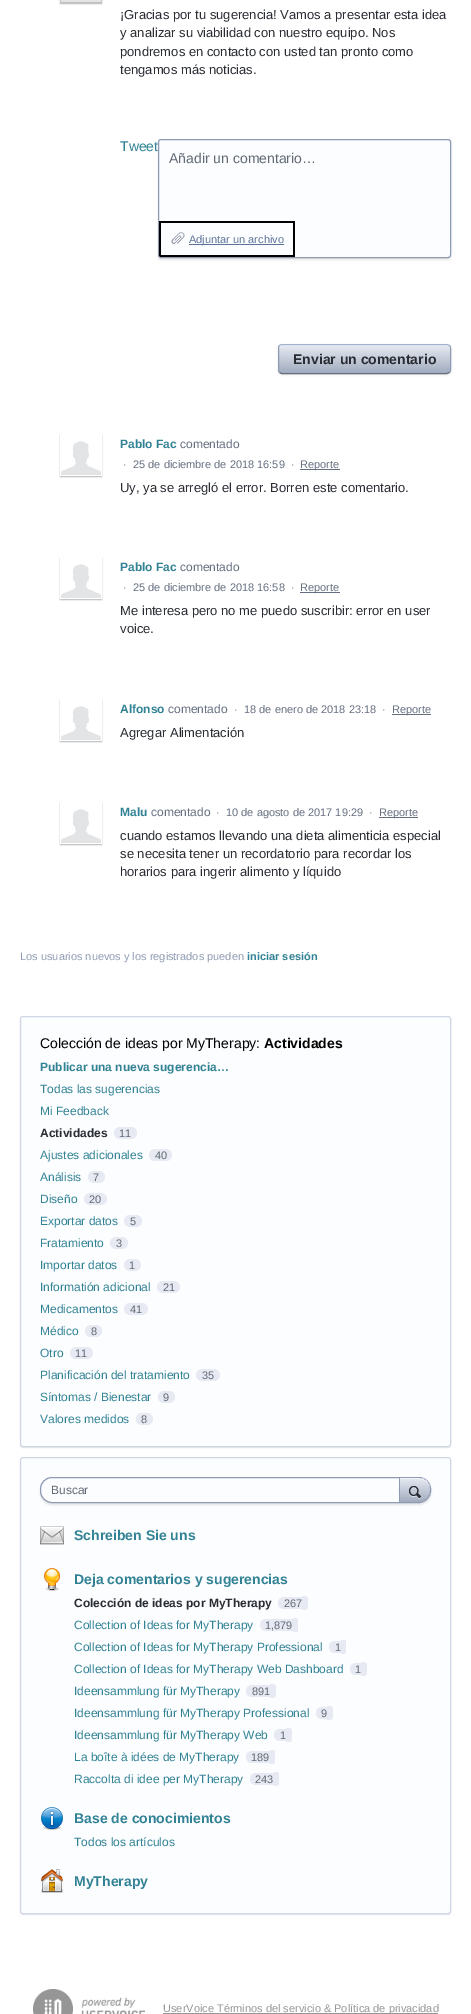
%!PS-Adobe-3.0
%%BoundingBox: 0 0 471 2014
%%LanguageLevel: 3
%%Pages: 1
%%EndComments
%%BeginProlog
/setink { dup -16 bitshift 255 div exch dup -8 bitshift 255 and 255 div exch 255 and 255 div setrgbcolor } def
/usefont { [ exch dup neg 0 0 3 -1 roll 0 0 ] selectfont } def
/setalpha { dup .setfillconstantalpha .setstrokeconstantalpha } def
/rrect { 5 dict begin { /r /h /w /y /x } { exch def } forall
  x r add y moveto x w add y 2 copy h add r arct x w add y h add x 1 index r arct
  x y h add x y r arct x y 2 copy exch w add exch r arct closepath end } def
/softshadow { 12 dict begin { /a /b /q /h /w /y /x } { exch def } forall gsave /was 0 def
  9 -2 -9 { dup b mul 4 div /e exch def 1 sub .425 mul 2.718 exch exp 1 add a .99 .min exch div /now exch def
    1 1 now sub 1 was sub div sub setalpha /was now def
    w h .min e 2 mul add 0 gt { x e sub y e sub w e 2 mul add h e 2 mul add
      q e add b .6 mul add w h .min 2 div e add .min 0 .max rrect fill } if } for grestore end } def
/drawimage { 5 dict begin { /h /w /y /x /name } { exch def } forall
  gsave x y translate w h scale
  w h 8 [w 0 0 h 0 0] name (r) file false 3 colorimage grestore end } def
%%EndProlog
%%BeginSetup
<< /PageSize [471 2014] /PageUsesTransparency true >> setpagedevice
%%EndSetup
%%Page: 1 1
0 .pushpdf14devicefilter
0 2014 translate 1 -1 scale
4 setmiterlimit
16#FFFFFF setink
0 0 471 2014 rectfill
16#000000 setink
60 -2 42 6 0 0.5 0.25 softshadow
16#E3E4E5 setink
61 0 40 2 rectfill
/LiberationSans-Regular 13 usefont
16#292C33 setink
[
    [(¡Gracias por tu sugerencia! Vamos a presentar esta idea) 120 19]
    [(y analizar su viabilidad con nuestro equipo. Nos) 120 37]
    [(pondremos en contacto con usted tan pronto como) 120 56]
    [(tengamos más noticias.) 120 74]
] { aload pop moveto show } forall
16#000000 setink
158 141 293 119 3 1 0.1 softshadow
16#FCFDFF setink
158.5 139.5 292 118 2.5 rrect gsave fill grestore
16#8F9BB3 setink
stroke
/LiberationSans-Regular 14 usefont
16#318294 setink
120 151 moveto (Tweet) show
16#616973 setink
169 163 moveto (Añadir un comentario…) show
(img1.raw) 171 232 14 12 drawimage
16#000000 setink
159 221 moveto 159 255 lineto 159 256 160 257 161 257 curveto 295 257 lineto 295 221 lineto closepath 161 223 moveto 161 255 lineto 293 255 lineto 293 223 lineto closepath eofill
16#5D7298 setink
189 244 95 1 rectfill
/LiberationSans-Regular 11 usefont
189 243 moveto (Adjuntar un archivo) show
16#000000 setink
278 345 173 30 4 1 0.1 softshadow
gsave 279 345 171 28 3 rrect clip newpath
<< /ShadingType 2 /ColorSpace /DeviceRGB /Coords [279 345 279 373] /Extend [true true] /Function << /FunctionType 2 /Domain [0 1] /C0 [0.902 0.918 0.949] /C1 [0.635 0.675 0.749] /N 1 >> >> shfill grestore
0.5 setalpha
16#FFFFFF setink
282 346 moveto 447 346 lineto 449 346 450 347 450 349 curveto 450 348 lineto 450 346 449 345 447 345 curveto 282 345 lineto 280 345 279 346 279 348 curveto 279 349 lineto 279 347 280 346 282 346 curveto closepath fill
1 setalpha
16#A3B1CC setink
279.5 345.5 moveto 281.5 344.5 lineto 419.5 344.5 lineto 447 344.5 lineto 449.5 345.5 lineto stroke
16#8F9BB3 setink
449.5 345.5 moveto 450 346 450.5 347 450.5 348 curveto 450.5 370 lineto 450.5 371 450 372 449.5 372.5 curveto stroke
16#666F80 setink
449.5 372.5 moveto 447 373.5 lineto 281.5 373.5 lineto 279.5 372.5 lineto stroke
16#8F9BB3 setink
279.5 372.5 moveto 279 372 278.5 371 278.5 370 curveto 278.5 348 lineto 278.5 347 279 346 279.5 345.5 curveto stroke
/LiberationSans-Bold 14 usefont
16#292C33 setink
293 364 moveto (Enviar un comentario) show
gsave
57 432 moveto 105 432 lineto 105 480 lineto 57 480 lineto closepath 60 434 moveto 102 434 lineto 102 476 lineto 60 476 lineto closepath eoclip newpath
16#000000 setink
60 435 42 42 0 0.5 0.25 softshadow
grestore
(img2.raw) 61 441 40 34 drawimage
/LiberationSans-Bold 12 usefont
16#318294 setink
120 448 moveto (Pablo Fac) show
/LiberationSans-Regular 12 usefont
16#666F80 setink
180 448 moveto (comentado) show
/LiberationSans-Regular 11 usefont
16#616973 setink
123 468 moveto (·) show
16#666F80 setink
133 468 moveto (25 de diciembre de 2018 16:59) show
16#616973 setink
291 468 moveto (·) show
16#666F80 setink
300 469 40 1 rectfill
300 468 moveto (Reporte) show
/LiberationSans-Regular 13 usefont
16#292C33 setink
120 492 moveto (Uy, ya se arregló el error. Borren este comentario.) show
gsave
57 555 moveto 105 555 lineto 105 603 lineto 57 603 lineto closepath 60 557 moveto 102 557 lineto 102 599 lineto 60 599 lineto closepath eoclip newpath
16#000000 setink
60 558 42 42 0 0.5 0.25 softshadow
grestore
(img2.raw) 61 564 40 34 drawimage
/LiberationSans-Bold 12 usefont
16#318294 setink
120 571 moveto (Pablo Fac) show
/LiberationSans-Regular 12 usefont
16#666F80 setink
180 571 moveto (comentado) show
/LiberationSans-Regular 11 usefont
16#616973 setink
123 591 moveto (·) show
16#666F80 setink
133 591 moveto (25 de diciembre de 2018 16:58) show
16#616973 setink
291 591 moveto (·) show
16#666F80 setink
300 592 40 1 rectfill
300 591 moveto (Reporte) show
/LiberationSans-Regular 13 usefont
16#292C33 setink
120 615 moveto (Me interesa pero no me puedo suscribir: error en user) show
120 633 moveto (voice.) show
gsave
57 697 moveto 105 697 lineto 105 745 lineto 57 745 lineto closepath 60 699 moveto 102 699 lineto 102 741 lineto 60 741 lineto closepath eoclip newpath
16#000000 setink
60 700 42 42 0 0.5 0.25 softshadow
grestore
(img2.raw) 61 706 40 34 drawimage
/LiberationSans-Bold 12 usefont
16#318294 setink
120 713 moveto (Alfonso) show
/LiberationSans-Regular 12 usefont
16#666F80 setink
168 713 moveto (comentado) show
/LiberationSans-Regular 11 usefont
16#616973 setink
234 713 moveto (·) show
16#666F80 setink
244 713 moveto (18 de enero de 2018 23:18) show
16#616973 setink
382 713 moveto (·) show
16#666F80 setink
392 714 39 1 rectfill
392 713 moveto (Reporte) show
/LiberationSans-Regular 13 usefont
16#292C33 setink
120 737 moveto (Agregar Alimentación) show
gsave
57 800 moveto 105 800 lineto 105 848 lineto 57 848 lineto closepath 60 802 moveto 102 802 lineto 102 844 lineto 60 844 lineto closepath eoclip newpath
16#000000 setink
60 803 42 42 0 0.5 0.25 softshadow
grestore
(img2.raw) 61 809 40 34 drawimage
/LiberationSans-Bold 12 usefont
16#318294 setink
120 816 moveto (Malu) show
/LiberationSans-Regular 12 usefont
16#666F80 setink
151 816 moveto (comentado) show
/LiberationSans-Regular 11 usefont
16#616973 setink
216 816 moveto (·) show
16#666F80 setink
226 816 moveto (10 de agosto de 2017 19:29) show
16#616973 setink
369 816 moveto (·) show
16#666F80 setink
379 817 39 1 rectfill
379 816 moveto (Reporte) show
/LiberationSans-Regular 13 usefont
16#292C33 setink
[
    [(cuando estamos llevando una dieta alimenticia especial) 120 840]
    [(se necesita tener un recordatorio para recordar los) 120 858]
    [(horarios para ingerir alimento y líquido) 120 876]
] { aload pop moveto show } forall
/LiberationSans-Regular 11 usefont
16#8F9BB3 setink
20 960 moveto (Los usuarios nuevos y los registrados pueden) show
/LiberationSans-Bold 11 usefont
16#318294 setink
247 960 moveto (iniciar sesión) show
16#000000 setink
20 1017 431 431 3 0.5 0.1 softshadow
16#FCFDFF setink
20.5 1016.5 430 430 2.5 rrect gsave fill grestore
16#CFD7E6 setink
stroke
/LiberationSans-Regular 14 usefont
16#000000 setink
40 1048 moveto (Colección de ideas por MyTherapy:) show
/LiberationSans-Bold 14 usefont
264 1048 moveto (Actividades) show
/LiberationSans-Bold 12 usefont
16#318294 setink
40 1071 moveto (Publicar una nueva sugerencia…) show
/LiberationSans-Regular 12 usefont
40 1093 moveto (Todas las sugerencias) show
40 1115 moveto (Mi Feedback) show
/LiberationSans-Bold 12 usefont
16#292C33 setink
40 1137 moveto (Actividades) show
16#E7EAF2 setink
114 1127 23 12 6 rrect fill
/LiberationSans-Regular 11 usefont
16#616973 setink
119 1137 moveto (11) show
/LiberationSans-Regular 12 usefont
16#318294 setink
40 1159 moveto (Ajustes adicionales) show
16#E7EAF2 setink
149 1149 23 12 6 rrect fill
/LiberationSans-Regular 11 usefont
16#616973 setink
155 1159 moveto (40) show
/LiberationSans-Regular 12 usefont
16#318294 setink
40 1181 moveto (Análisis) show
16#E7EAF2 setink
88 1171 17 12 6 rrect fill
/LiberationSans-Regular 11 usefont
16#616973 setink
93 1181 moveto (7) show
/LiberationSans-Regular 12 usefont
16#318294 setink
40 1203 moveto (Diseño) show
16#E7EAF2 setink
84 1193 23 12 6 rrect fill
/LiberationSans-Regular 11 usefont
16#616973 setink
89 1203 moveto (20) show
/LiberationSans-Regular 12 usefont
16#318294 setink
40 1225 moveto (Exportar datos) show
16#E7EAF2 setink
124 1215 18 12 6 rrect fill
/LiberationSans-Regular 11 usefont
16#616973 setink
130 1225 moveto (5) show
/LiberationSans-Regular 12 usefont
16#318294 setink
40 1247 moveto (Fratamiento) show
16#E7EAF2 setink
110 1237 18 12 6 rrect fill
/LiberationSans-Regular 11 usefont
16#616973 setink
116 1247 moveto (3) show
/LiberationSans-Regular 12 usefont
16#318294 setink
40 1269 moveto (Importar datos) show
16#E7EAF2 setink
124 1259 17 12 6 rrect fill
/LiberationSans-Regular 11 usefont
16#616973 setink
129 1269 moveto (1) show
/LiberationSans-Regular 12 usefont
16#318294 setink
40 1291 moveto (Informatión adicional) show
16#E7EAF2 setink
157 1281 23 12 6 rrect fill
/LiberationSans-Regular 11 usefont
16#616973 setink
163 1291 moveto (21) show
/LiberationSans-Regular 12 usefont
16#318294 setink
40 1313 moveto (Medicamentos) show
16#E7EAF2 setink
124 1303 24 12 6 rrect fill
/LiberationSans-Regular 11 usefont
16#616973 setink
130 1313 moveto (41) show
/LiberationSans-Regular 12 usefont
16#318294 setink
40 1335 moveto (Médico) show
16#E7EAF2 setink
85 1325 17 12 6 rrect fill
/LiberationSans-Regular 11 usefont
16#616973 setink
91 1335 moveto (8) show
/LiberationSans-Regular 12 usefont
16#318294 setink
40 1357 moveto (Otro) show
16#E7EAF2 setink
70 1347 23 12 6 rrect fill
/LiberationSans-Regular 11 usefont
16#616973 setink
75 1357 moveto (11) show
/LiberationSans-Regular 12 usefont
16#318294 setink
40 1379 moveto (Planificación del tratamiento) show
16#E7EAF2 setink
196 1369 24 12 6 rrect fill
/LiberationSans-Regular 11 usefont
16#616973 setink
202 1379 moveto (35) show
/LiberationSans-Regular 12 usefont
16#318294 setink
40 1401 moveto (Síntomas / Bienestar) show
16#E7EAF2 setink
158 1391 17 12 6 rrect fill
/LiberationSans-Regular 11 usefont
16#616973 setink
163 1401 moveto (9) show
/LiberationSans-Regular 12 usefont
16#318294 setink
40 1423 moveto (Valores medidos) show
16#E7EAF2 setink
136 1413 17 12 6 rrect fill
/LiberationSans-Regular 11 usefont
16#616973 setink
141 1423 moveto (8) show
16#000000 setink
20 1458 431 457 3 0.5 0.1 softshadow
16#FCFDFF setink
20.5 1457.5 430 456 2.5 rrect gsave fill grestore
16#CFD7E6 setink
stroke
16#000000 setink
40 1479 391 26 12 1 0.1 softshadow
16#FCFDFF setink
40.5 1477.5 390 25 11.5 rrect gsave fill grestore
16#8F9BB3 setink
stroke
/LiberationSans-Regular 12 usefont
16#616973 setink
51 1494 moveto (Buscar) show
gsave
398 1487 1 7 rectclip
16#000000 setink
399 1478 32 25 12 1 0.1 softshadow
grestore
gsave 400 1478 moveto 419 1478 lineto 425 1478 430 1483 430 1489 curveto 430 1490 lineto 430 1496.5 425 1502 419 1502 curveto 400 1502 lineto closepath clip newpath
<< /ShadingType 2 /ColorSpace /DeviceRGB /Coords [400 1478 400 1502] /Extend [true true] /Function << /FunctionType 2 /Domain [0 1] /C0 [0.902 0.918 0.949] /C1 [0.635 0.675 0.749] /N 1 >> >> shfill grestore
0.5 setalpha
16#FFFFFF setink
400 1478 moveto 400 1479 lineto 419 1479 lineto 425 1479 430 1484 430 1490 curveto 430 1483.5 426 1478 419 1478 curveto closepath fill
1 setalpha
16#A3B1CC setink
419 1478 moveto 422 1478 425 1479 427 1481 curveto 425 1479.5 422 1478 419 1478 curveto closepath fill
16#8F9BB3 setink
430 1490 moveto 430 1496.5 426 1502 419 1502 curveto 425 1502 430 1496.5 430 1490 curveto closepath 427 1481 moveto 428.5 1483 430 1486 430 1489 curveto 430 1486 429 1483 427 1481 curveto closepath eofill
399 1478 1 24 rectfill
(img3.raw) 409 1486 12 13 drawimage
(img4.raw) 40 1526 24 19 drawimage
/LiberationSans-Bold 14 usefont
16#318294 setink
74 1540 moveto (Schreiben Sie uns) show
(img5.raw) 44 1568 16 23 drawimage
74 1584 moveto (Deja comentarios y sugerencias) show
/LiberationSans-Bold 12 usefont
16#292C33 setink
74 1607 moveto (Colección de ideas por MyTherapy) show
16#E7EAF2 setink
284 1597 moveto 302 1597 lineto 302 1609 lineto 284 1609 lineto 280.5 1609 278 1606.5 278 1603 curveto 278 1599.5 280.5 1597 284 1597 curveto closepath fill
/LiberationSans-Regular 11 usefont
16#616973 setink
284 1607 moveto (267) show
16#E7EAF2 setink
302 1596 moveto 305 1596 lineto 306.5 1596 308 1597.5 308 1599 curveto 308 1607 lineto 308 1608.5 306.5 1610 305 1610 curveto 302 1610 lineto closepath fill
/LiberationSans-Regular 12 usefont
16#318294 setink
74 1629 moveto (Collection of Ideas for MyTherapy) show
16#E7EAF2 setink
266 1619 moveto 293 1619 lineto 293 1631 lineto 266 1631 lineto 262.5 1631 260 1628.5 260 1625 curveto 260 1621.5 262.5 1619 266 1619 curveto closepath fill
/LiberationSans-Regular 11 usefont
16#616973 setink
265 1629 moveto (1,879) show
16#E7EAF2 setink
293 1618 moveto 295.5 1618 lineto 297 1618 298 1619 298 1620.5 curveto 298 1629.5 lineto 298 1631 297 1632 295.5 1632 curveto 293 1632 lineto closepath fill
/LiberationSans-Regular 12 usefont
16#318294 setink
74 1651 moveto (Collection of Ideas for MyTherapy Professional) show
16#E7EAF2 setink
335 1641 moveto 341 1641 lineto 341 1653 lineto 335 1653 lineto 331.5 1653 329 1650.5 329 1647 curveto 329 1643.5 331.5 1641 335 1641 curveto closepath fill
/LiberationSans-Regular 11 usefont
16#616973 setink
335 1651 moveto (1) show
16#E7EAF2 setink
341 1640 moveto 343.5 1640 lineto 345 1640 346 1641 346 1642.5 curveto 346 1651.5 lineto 346 1653 345 1654 343.5 1654 curveto 341 1654 lineto closepath fill
/LiberationSans-Regular 12 usefont
16#318294 setink
74 1673 moveto (Collection of Ideas for MyTherapy Web Dashboard) show
16#E7EAF2 setink
355.5 1663 moveto 361 1663 lineto 361 1675 lineto 355.5 1675 lineto 352.5 1675 350 1672.5 350 1669.5 curveto 350 1668.5 lineto 350 1665.5 352.5 1663 355.5 1663 curveto closepath fill
/LiberationSans-Regular 11 usefont
16#616973 setink
355 1673 moveto (1) show
16#E7EAF2 setink
361 1662 moveto 364 1662 lineto 365.5 1662 367 1663.5 367 1665 curveto 367 1673 lineto 367 1674.5 365.5 1676 364 1676 curveto 361 1676 lineto closepath fill
/LiberationSans-Regular 12 usefont
16#318294 setink
74 1695 moveto (Ideensammlung für MyTherapy) show
16#E7EAF2 setink
252 1685 moveto 270 1685 lineto 270 1697 lineto 252 1697 lineto 248.5 1697 246 1694.5 246 1691 curveto 246 1687.5 248.5 1685 252 1685 curveto closepath fill
/LiberationSans-Regular 11 usefont
16#616973 setink
252 1695 moveto (891) show
16#E7EAF2 setink
270 1684 moveto 273 1684 lineto 274.5 1684 276 1685.5 276 1687 curveto 276 1695 lineto 276 1696.5 274.5 1698 273 1698 curveto 270 1698 lineto closepath fill
/LiberationSans-Regular 12 usefont
16#318294 setink
74 1717 moveto (Ideensammlung für MyTherapy Professional) show
16#E7EAF2 setink
321.5 1707 moveto 327 1707 lineto 327 1719 lineto 321.5 1719 lineto 318.5 1719 316 1716.5 316 1713.5 curveto 316 1712.5 lineto 316 1709.5 318.5 1707 321.5 1707 curveto closepath fill
/LiberationSans-Regular 11 usefont
16#616973 setink
321 1717 moveto (9) show
16#E7EAF2 setink
327 1706 moveto 330 1706 lineto 331.5 1706 333 1707.5 333 1709 curveto 333 1717 lineto 333 1718.5 331.5 1720 330 1720 curveto 327 1720 lineto closepath fill
/LiberationSans-Regular 12 usefont
16#318294 setink
74 1739 moveto (Ideensammlung für MyTherapy Web) show
16#E7EAF2 setink
280 1729 moveto 286 1729 lineto 286 1741 lineto 280 1741 lineto 276.5 1741 274 1738.5 274 1735 curveto 274 1731.5 276.5 1729 280 1729 curveto closepath fill
/LiberationSans-Regular 11 usefont
16#616973 setink
280 1739 moveto (1) show
16#E7EAF2 setink
286 1728 moveto 289 1728 lineto 290.5 1728 292 1729.5 292 1731 curveto 292 1739 lineto 292 1740.5 290.5 1742 289 1742 curveto 286 1742 lineto closepath fill
/LiberationSans-Regular 12 usefont
16#318294 setink
74 1761 moveto (La boîte à idées de MyTherapy) show
16#E7EAF2 setink
252 1751 moveto 270 1751 lineto 270 1763 lineto 252 1763 lineto 248.5 1763 246 1760.5 246 1757 curveto 246 1753.5 248.5 1751 252 1751 curveto closepath fill
/LiberationSans-Regular 11 usefont
16#616973 setink
251 1761 moveto (189) show
16#E7EAF2 setink
270 1750 moveto 272.5 1750 lineto 274 1750 275 1751 275 1752.5 curveto 275 1761.5 lineto 275 1763 274 1764 272.5 1764 curveto 270 1764 lineto closepath fill
/LiberationSans-Regular 12 usefont
16#318294 setink
74 1783 moveto (Raccolta di idee per MyTherapy) show
16#E7EAF2 setink
256 1773 moveto 274 1773 lineto 274 1785 lineto 256 1785 lineto 252.5 1785 250 1782.5 250 1779 curveto 250 1775.5 252.5 1773 256 1773 curveto closepath fill
/LiberationSans-Regular 11 usefont
16#616973 setink
255 1783 moveto (243) show
16#E7EAF2 setink
274 1772 moveto 276.5 1772 lineto 278 1772 279 1773 279 1774.5 curveto 279 1783.5 lineto 279 1785 278 1786 276.5 1786 curveto 274 1786 lineto closepath fill
(img6.raw) 41 1807 22 23 drawimage
/LiberationSans-Bold 14 usefont
16#318294 setink
74 1823 moveto (Base de conocimientos) show
/LiberationSans-Regular 12 usefont
74 1846 moveto (Todos los artículos) show
(img7.raw) 41 1869 23 24 drawimage
/LiberationSans-Bold 14 usefont
74 1886 moveto (MyTherapy) show
(img8.raw) 33 1989 112 25 drawimage
16#969696 setink
163 2013 275 1 rectfill
/LiberationSans-Regular 11 usefont
163 2012 moveto (UserVoice Términos del servicio & Política de privacidad) show
.poppdf14devicefilter showpage
%%EOF
